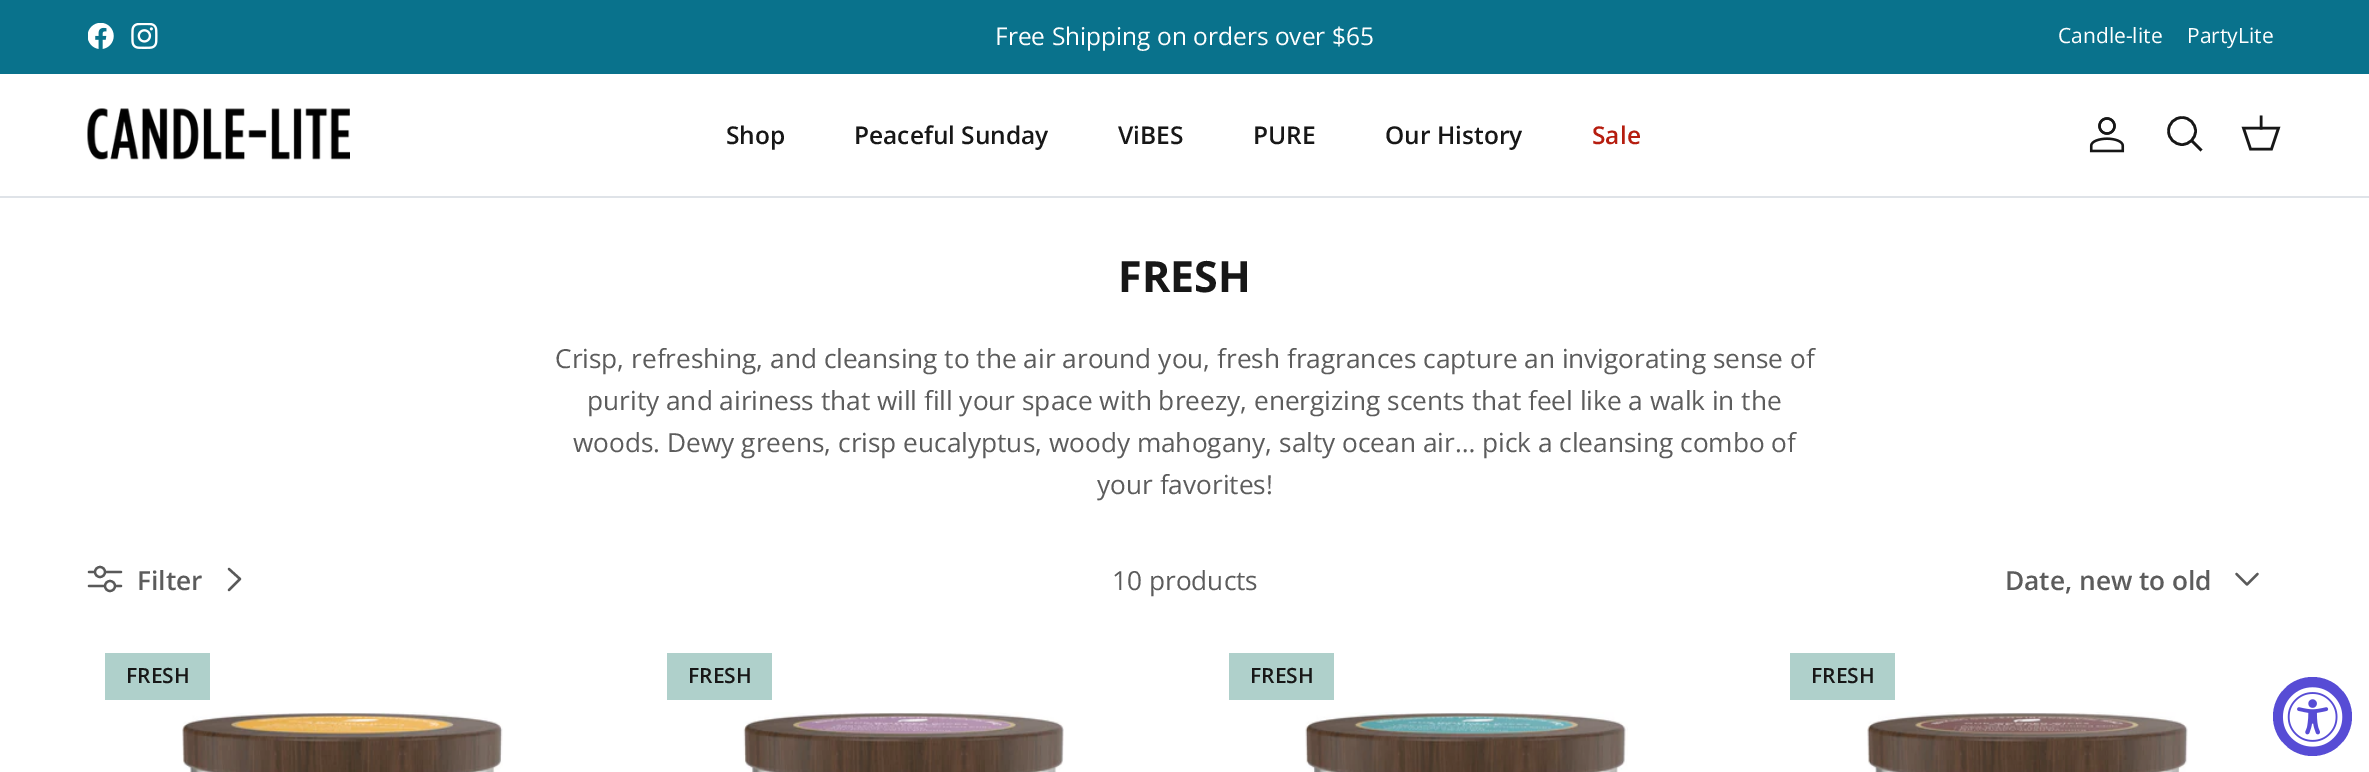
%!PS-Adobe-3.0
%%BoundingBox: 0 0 2369 772
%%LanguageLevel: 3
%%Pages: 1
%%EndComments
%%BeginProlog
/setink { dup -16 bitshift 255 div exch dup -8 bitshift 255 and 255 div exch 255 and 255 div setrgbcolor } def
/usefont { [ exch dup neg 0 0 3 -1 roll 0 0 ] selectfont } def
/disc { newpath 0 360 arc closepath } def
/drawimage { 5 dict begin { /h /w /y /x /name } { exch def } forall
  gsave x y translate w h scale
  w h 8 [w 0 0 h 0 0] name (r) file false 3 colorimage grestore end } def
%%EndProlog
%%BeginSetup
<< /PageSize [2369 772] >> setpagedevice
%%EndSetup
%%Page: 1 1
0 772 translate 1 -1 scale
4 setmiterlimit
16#FFFFFF setink
0 0 2369 772 rectfill
16#09728C setink
0 0 2369 74 rectfill
(img1.raw) 88 23 26 26 drawimage
(img2.raw) 131 23 27 26 drawimage
/OpenSans-Regular 24.5 usefont
16#FFFFFF setink
995 45 moveto (Free Shipping on orders over $65) show
/OpenSans-Regular 21 usefont
2058 43 moveto (Candle-lite) show
2187 43 moveto (PartyLite) show
16#DFE3E8 setink
0 196 2369 2 rectfill
(img3.raw) 87 108 263 52 drawimage
/OpenSans-SemiBold 24.5 usefont
16#171717 setink
[
    [(Shop) 726 144]
    [(Peaceful Sunday) 854 144]
    [(ViBES) 1118 144]
    [(PURE) 1253 144]
    [(Our History) 1385 144]
] { aload pop moveto show } forall
16#B61D0F setink
1592 144 moveto (Sale) show
(img4.raw) 2089 117 36 36 drawimage
16#171717 setink
2.6 setlinewidth
2182 131 13.5 disc stroke
2 setlinecap
2192.5 141.5 moveto 2200.5 149.5 lineto stroke
0 setlinecap
2243.5 128 moveto 2278.5 128 lineto 2271.5 149 lineto 2250.5 149 lineto closepath stroke
2 setlinecap
2261 128 moveto 2261 117 lineto stroke
/OpenSans-Bold 43 usefont
1118 292 moveto (FRESH) show
/OpenSans-Regular 26.25 usefont
16#5C5C5C setink
[
    [(Crisp, refreshing, and cleansing to the air around you, fresh fragrances capture an invigorating sense of) 555 368]
    [(purity and airiness that will fill your space with breezy, energizing scents that feel like a walk in the) 587 410]
    [(woods. Dewy greens, crisp eucalyptus, woody mahogany, salty ocean air… pick a cleansing combo of) 573 452]
    [(your favorites!) 1097 494]
] { aload pop moveto show } forall
16#595959 setink
2.2 setlinewidth
1 setlinecap
1 setlinejoin
89 572 moveto 121 572 lineto 89 586 moveto 121 586 lineto stroke
16#FFFFFF setink
100 572 5 disc gsave fill grestore
16#595959 setink
0 setlinecap
0 setlinejoin
stroke
16#FFFFFF setink
110 586 5 disc gsave fill grestore
16#595959 setink
stroke
/OpenSans-SemiBold 26.25 usefont
16#5C5C5C setink
137 590 moveto (Filter) show
16#595959 setink
2.3 setlinewidth
1 setlinecap
1 setlinejoin
229 590 moveto 240 579 lineto 229 569 lineto stroke
/OpenSans-Regular 26.25 usefont
16#5C5C5C setink
1112 590 moveto (10 products) show
/OpenSans-SemiBold 26.25 usefont
2005 590 moveto (Date, new to old) show
16#595959 setink
2236.5 574 moveto 2247 584.5 lineto 2257.5 574 lineto stroke
16#AFD0CB setink
105 653 105 47 rectfill
/OpenSans-SemiBold 21 usefont
16#171717 setink
126 683 moveto (FRESH) show
(img5.raw) 182 712 321 60 drawimage
16#AFD0CB setink
667 653 105 47 rectfill
16#171717 setink
688 683 moveto (FRESH) show
(img6.raw) 743 712 321 60 drawimage
16#AFD0CB setink
1229 653 105 47 rectfill
16#171717 setink
1250 683 moveto (FRESH) show
(img7.raw) 1305 712 323 60 drawimage
16#AFD0CB setink
1790 653 105 47 rectfill
16#171717 setink
1811 683 moveto (FRESH) show
(img8.raw) 1867 712 321 60 drawimage
16#574CD5 setink
2312.5 716.5 39.5 disc fill
(img9.raw) 2282 687 61 60 drawimage
showpage
%%EOF
